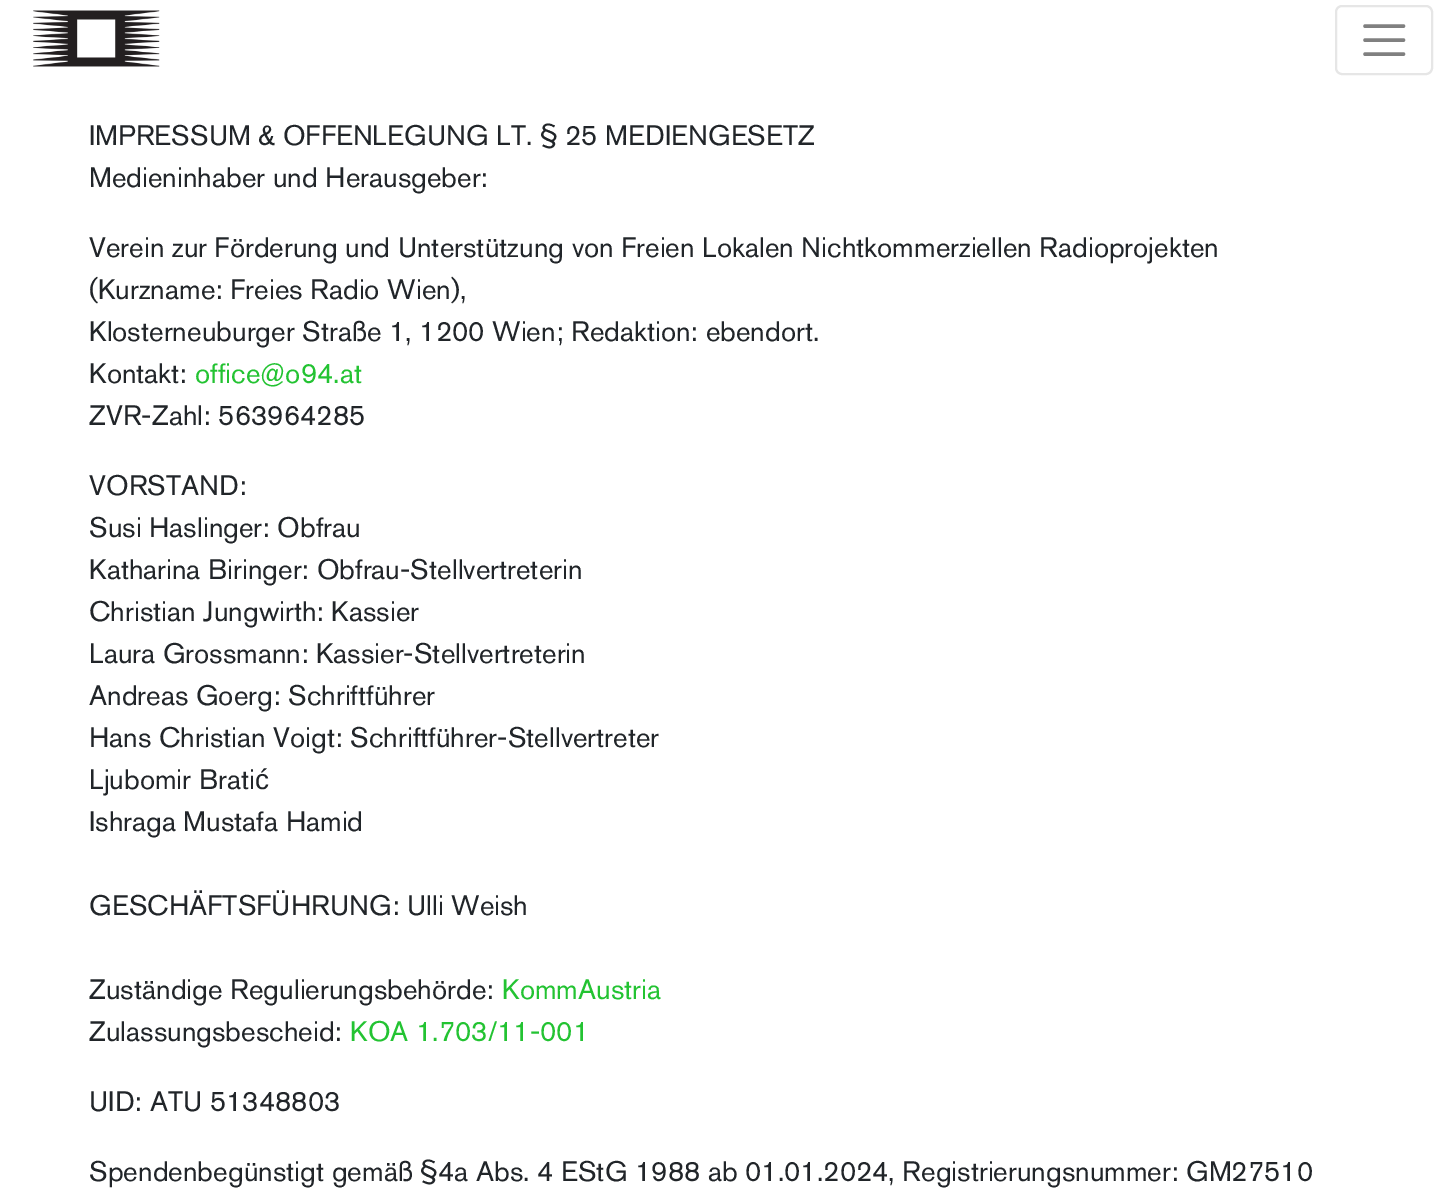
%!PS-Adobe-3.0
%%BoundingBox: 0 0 1438 1197
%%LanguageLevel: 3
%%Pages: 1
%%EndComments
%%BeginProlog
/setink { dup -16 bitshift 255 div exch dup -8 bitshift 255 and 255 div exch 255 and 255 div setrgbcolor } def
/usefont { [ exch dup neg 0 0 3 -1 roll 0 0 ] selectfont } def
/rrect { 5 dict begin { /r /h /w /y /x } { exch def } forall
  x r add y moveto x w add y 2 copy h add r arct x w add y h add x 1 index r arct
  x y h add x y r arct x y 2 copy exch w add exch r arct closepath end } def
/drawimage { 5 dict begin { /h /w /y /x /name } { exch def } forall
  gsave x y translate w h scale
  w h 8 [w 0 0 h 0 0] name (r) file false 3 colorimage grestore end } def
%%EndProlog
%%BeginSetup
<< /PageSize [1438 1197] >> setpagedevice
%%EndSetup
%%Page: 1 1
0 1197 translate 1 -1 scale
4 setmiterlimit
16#FFFFFF setink
0 0 1438 1197 rectfill
(img1.raw) 33 10 127 57 drawimage
16#E6E6E6 setink
2 setlinewidth
1336 6 96 68 6 rrect stroke
16#808080 setink
3.5 setlinewidth
1 setlinecap
1365 26 moveto 1403.5 26 lineto 1365 40 moveto 1403.5 40 lineto 1365 54 moveto 1403.5 54 lineto stroke
/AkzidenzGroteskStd-Regular 28 usefont
16#212529 setink
[
    [(IMPRESSUM & OFFENLEGUNG LT. § 25 MEDIENGESETZ) 89 145]
    [(Medieninhaber und Herausgeber:) 89 187]
    [(Verein zur Förderung und Unterstützung von Freien Lokalen Nichtkommerziellen Radioprojekten) 89 257]
    [(\(Kurzname: Freies Radio Wien\),) 89 299]
    [(Klosterneuburger Straße 1, 1200 Wien; Redaktion: ebendort.) 89 341]
    [(Kontakt:) 89 383]
] { aload pop moveto show } forall
16#23C332 setink
195 383 moveto (office@o94.at) show
16#212529 setink
[
    [(ZVR-Zahl: 563964285) 89 425]
    [(VORSTAND:) 89 495]
    [(Susi Haslinger: Obfrau) 89 537]
    [(Katharina Biringer: Obfrau-Stellvertreterin) 89 579]
    [(Christian Jungwirth: Kassier) 89 621]
    [(Laura Grossmann: Kassier-Stellvertreterin) 89 663]
    [(Andreas Goerg: Schriftführer) 89 705]
    [(Hans Christian Voigt: Schriftführer-Stellvertreter) 89 747]
    [(Ljubomir Brati) 89 789]
] { aload pop moveto show } forall
/LiberationSans-Regular 28 usefont
255 789 moveto (ć) show
/AkzidenzGroteskStd-Regular 28 usefont
[
    [(Ishraga Mustafa Hamid) 89 831]
    [(GESCHÄFTSFÜHRUNG: Ulli Weish) 89 915]
    [(Zuständige Regulierungsbehörde:) 89 999]
] { aload pop moveto show } forall
16#23C332 setink
502 999 moveto (KommAustria) show
16#212529 setink
89 1041 moveto (Zulassungsbescheid:) show
16#23C332 setink
350 1041 moveto (KOA 1.703/11-001) show
16#212529 setink
89 1111 moveto (UID: ATU 51348803) show
89 1181 moveto (Spendenbegünstigt gemäß §4a Abs. 4 EStG 1988 ab 01.01.2024, Registrierungsnummer: GM27510) show
showpage
%%EOF
